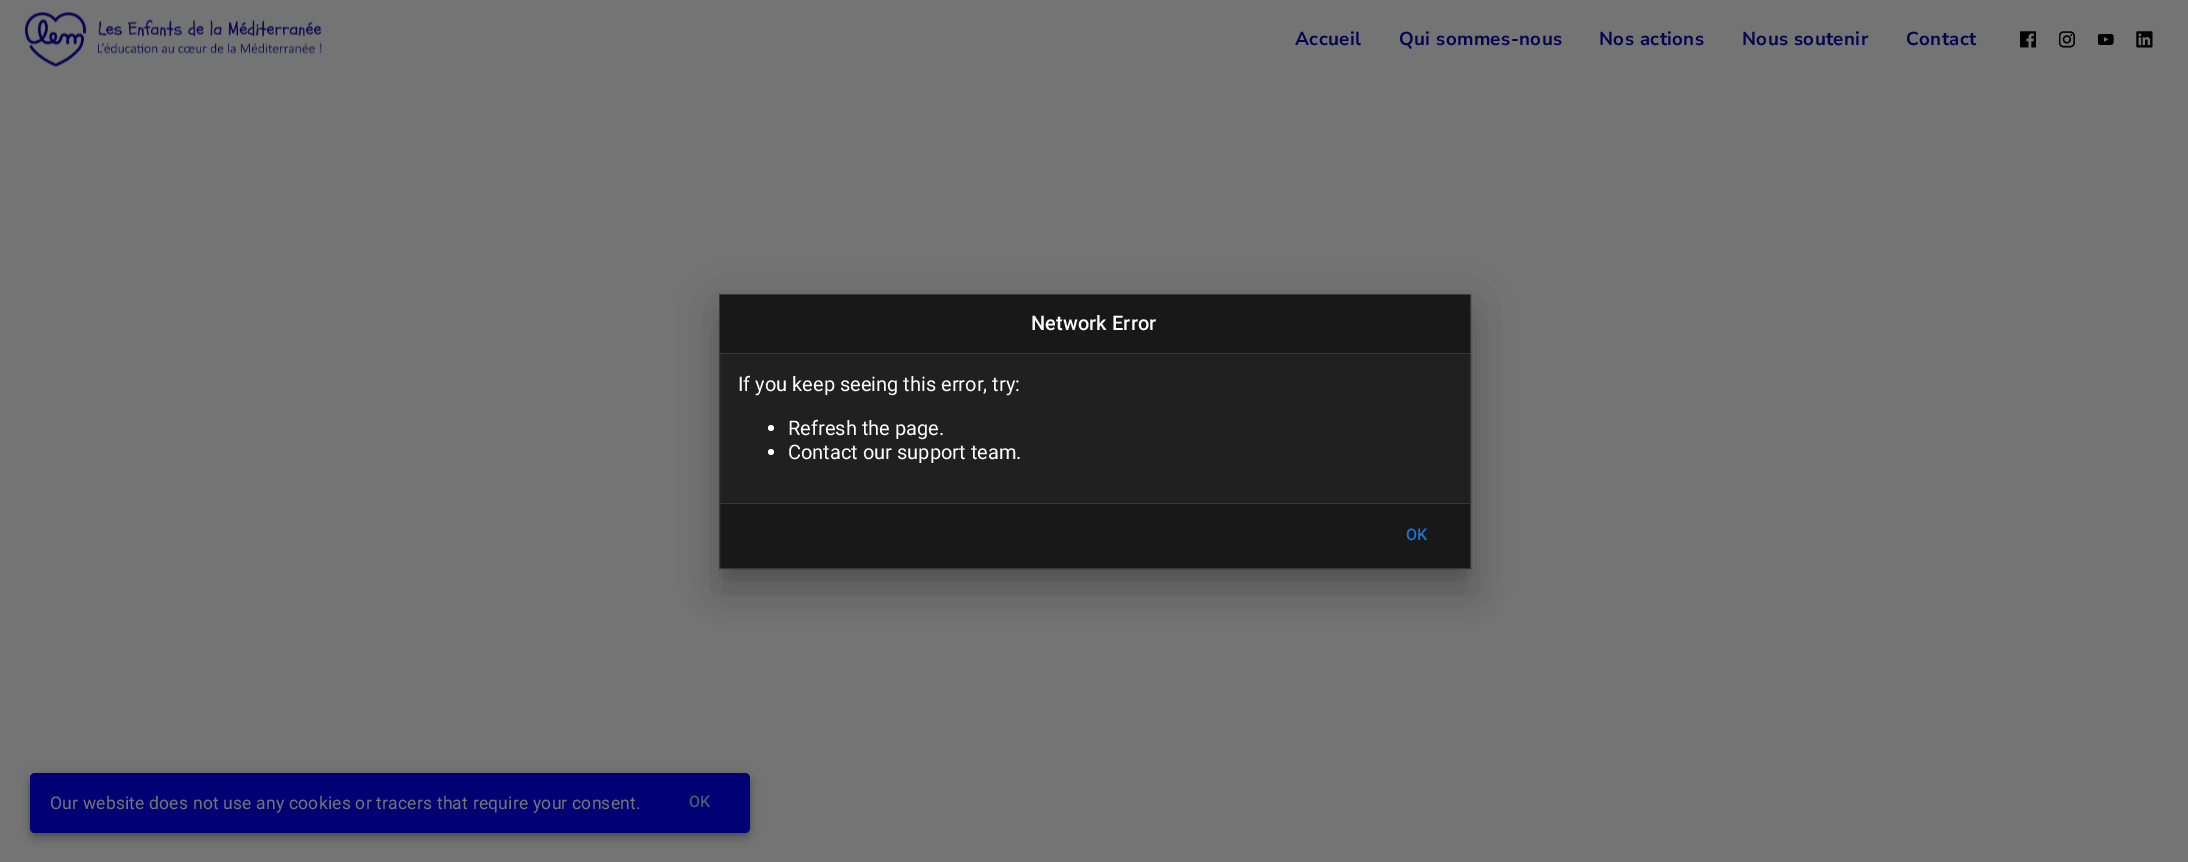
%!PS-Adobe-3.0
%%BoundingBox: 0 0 2188 862
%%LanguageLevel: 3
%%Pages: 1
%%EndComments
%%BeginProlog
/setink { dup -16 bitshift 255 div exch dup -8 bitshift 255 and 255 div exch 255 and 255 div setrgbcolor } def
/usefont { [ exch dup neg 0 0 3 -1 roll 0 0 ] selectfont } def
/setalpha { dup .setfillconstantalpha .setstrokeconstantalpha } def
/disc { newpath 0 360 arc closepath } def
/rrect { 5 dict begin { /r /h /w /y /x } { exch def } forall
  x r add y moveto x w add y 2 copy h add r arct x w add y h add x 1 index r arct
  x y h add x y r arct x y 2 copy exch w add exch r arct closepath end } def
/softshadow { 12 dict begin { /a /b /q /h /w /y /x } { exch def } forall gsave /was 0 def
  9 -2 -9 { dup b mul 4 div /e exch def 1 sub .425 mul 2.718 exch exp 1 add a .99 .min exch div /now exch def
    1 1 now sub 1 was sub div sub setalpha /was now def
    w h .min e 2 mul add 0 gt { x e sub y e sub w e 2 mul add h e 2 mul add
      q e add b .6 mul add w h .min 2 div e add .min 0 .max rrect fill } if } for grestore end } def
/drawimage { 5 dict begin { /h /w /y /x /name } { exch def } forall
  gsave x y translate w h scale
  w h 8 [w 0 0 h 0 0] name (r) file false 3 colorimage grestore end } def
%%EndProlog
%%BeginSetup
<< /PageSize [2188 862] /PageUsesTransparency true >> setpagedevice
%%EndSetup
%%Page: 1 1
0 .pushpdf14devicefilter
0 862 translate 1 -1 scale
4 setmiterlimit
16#747474 setink
0 0 2188 862 rectfill
(img1.raw) 25 12 297 55 drawimage
/NunitoSans-Bold 18.75 usefont
16#050451 setink
1295 45 moveto 0.4 0 (Accueil) ashow
1399 45 moveto 0.4 0 (Qui sommes-nous) ashow
1599 45 moveto 0.4 0 (Nos actions) ashow
1742 45 moveto 0.4 0 (Nous soutenir) ashow
1906 45 moveto 0.4 0 (Contact) ashow
(img2.raw) 2020 31 16 17 drawimage
(img3.raw) 2059 31 16 17 drawimage
(img4.raw) 2098 34 16 11 drawimage
(img5.raw) 2136 31 17 17 drawimage
16#010101 setink
30 774 720 60 5 11 0.12 softshadow
30 780 720 60 5 6 0.14 softshadow
31 778 718 57 4 3 0.2 softshadow
16#010174 setink
30 773 720 60 5 rrect fill
/Roboto-Regular 17.5 usefont
16#747474 setink
50 809 moveto 0.2 0 (Our website does not use any cookies or tracers that require your consent.) ashow
/Roboto-Medium 16 usefont
16#425C71 setink
689 807 moveto (OK) show
16#000000 setink
710 296 770 293 0 29 0.12 softshadow
716 321 758 280 0 24 0.14 softshadow
729 318 732 255 0 9.5 0.2 softshadow
[
    [720 354 750 149 16#202020]
    [720 504 750 64 16#181818]
    [720 503 750 1 16#383838]
] { aload pop setink rectfill } forall
719.5 294.5 751 274 rectstroke
16#181818 setink
720 295 750 58 rectfill
16#383838 setink
720 353 750 1 rectfill
/Roboto-Medium 20 usefont
16#FFFFFF setink
1031 330 moveto 0.1 0 (Network Error) ashow
/Roboto-Regular 20 usefont
738 391 moveto (If you keep seeing this error, try:) show
771 428 3 disc fill
788 435 moveto (Refresh the page.) show
771 452 3 disc fill
788 459 moveto (Contact our support team.) show
/Roboto-Medium 16 usefont
16#1976D2 setink
1406 540 moveto (OK) show
.poppdf14devicefilter showpage
%%EOF
